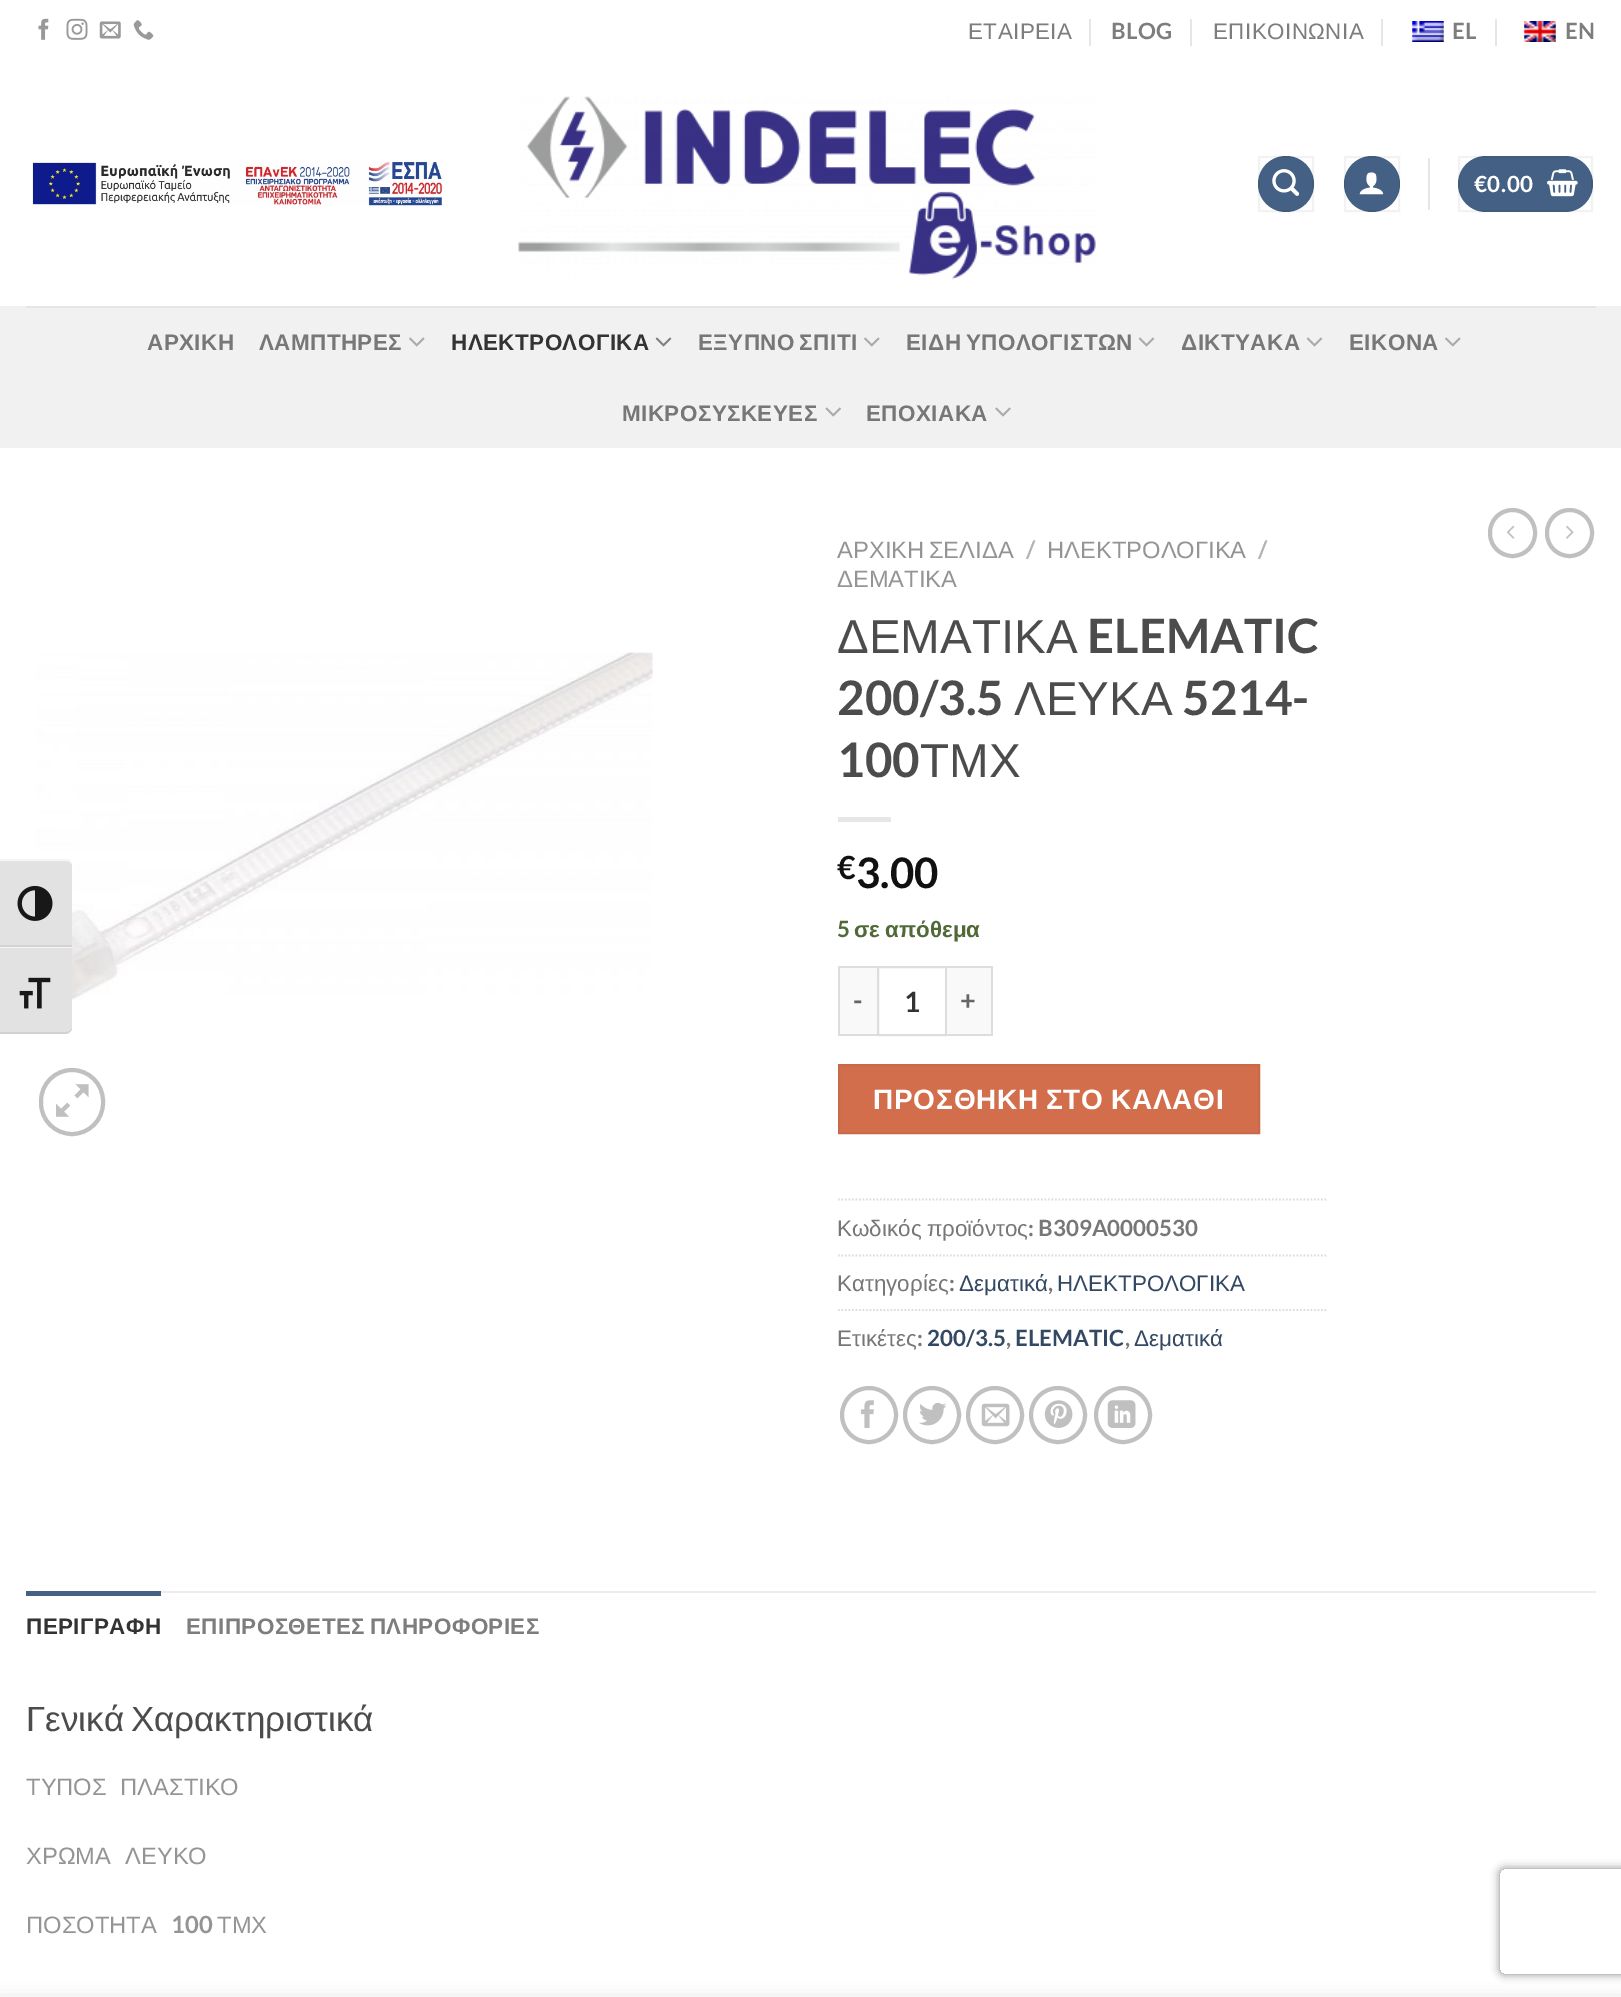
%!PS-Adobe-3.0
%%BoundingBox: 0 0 1621 1997
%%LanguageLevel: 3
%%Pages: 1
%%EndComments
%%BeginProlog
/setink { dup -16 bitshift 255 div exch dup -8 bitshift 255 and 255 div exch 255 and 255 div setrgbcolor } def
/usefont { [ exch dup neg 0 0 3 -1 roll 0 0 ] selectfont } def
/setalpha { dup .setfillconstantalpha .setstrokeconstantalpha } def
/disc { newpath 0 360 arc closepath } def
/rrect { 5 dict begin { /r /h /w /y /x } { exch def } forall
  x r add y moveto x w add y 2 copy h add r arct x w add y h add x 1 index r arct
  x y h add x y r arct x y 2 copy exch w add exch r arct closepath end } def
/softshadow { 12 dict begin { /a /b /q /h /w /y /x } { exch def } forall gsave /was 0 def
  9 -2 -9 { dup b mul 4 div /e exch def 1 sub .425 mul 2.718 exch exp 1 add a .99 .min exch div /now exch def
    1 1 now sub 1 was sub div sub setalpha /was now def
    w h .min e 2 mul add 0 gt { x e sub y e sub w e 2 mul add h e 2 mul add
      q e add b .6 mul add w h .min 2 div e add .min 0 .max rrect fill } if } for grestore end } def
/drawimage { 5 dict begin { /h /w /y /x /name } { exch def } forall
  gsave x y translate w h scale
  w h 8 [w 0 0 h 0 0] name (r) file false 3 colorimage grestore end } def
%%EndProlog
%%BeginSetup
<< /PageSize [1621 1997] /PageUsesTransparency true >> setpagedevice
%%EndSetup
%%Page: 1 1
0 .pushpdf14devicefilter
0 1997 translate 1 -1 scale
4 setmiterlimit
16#FFFFFF setink
0 0 1621 1997 rectfill
(img1.raw) 38 18 11 22 drawimage
(img2.raw) 66 18 22 22 drawimage
(img3.raw) 99 21 22 18 drawimage
(img4.raw) 133 20 21 20 drawimage
/LiberationSans-Regular 22.4 usefont
16#7D7D7D setink
968 39 moveto 0.45 0 (ΕΤΑΙΡΕΙΑ) ashow
16#E6E6E6 setink
1089 19 2 27 rectfill
/Lato-Bold 22.4 usefont
16#7D7D7D setink
1111 39 moveto 0.45 0 (BLOG) ashow
16#E6E6E6 setink
1190 19 2 27 rectfill
/LiberationSans-Regular 22.4 usefont
16#7D7D7D setink
1213 39 moveto 0.45 0 (ΕΠΙΚΟΙΝΩΝΙΑ) ashow
16#E6E6E6 setink
1381 19 2 27 rectfill
(img5.raw) 1412 21 32 21 drawimage
/Lato-Bold 22.4 usefont
16#7D7D7D setink
1452 39 moveto 0.45 0 (EL) ashow
16#E6E6E6 setink
1495 19 2 27 rectfill
(img6.raw) 1524 21 32 21 drawimage
16#7D7D7D setink
1565 39 moveto 0.45 0 (EN) ashow
(img7.raw) 32 161 411 45 drawimage
(img8.raw) 518 96 578 184 drawimage
16#446084 setink
1286 184 28 disc fill
0.05 setalpha
16#000000 setink
2 setlinewidth
1259 157 54 54 rectstroke
1 setalpha
(img9.raw) 1272 169 28 27 drawimage
16#446084 setink
1372 184 28 disc fill
0.05 setalpha
16#000000 setink
1345 157 54 54 rectstroke
1 setalpha
(img10.raw) 1359 172 25 23 drawimage
16#E6E6E6 setink
1428 158 2 52 rectfill
16#446084 setink
1458 156 135 56 28 rrect fill
0.05 setalpha
16#000000 setink
1459 157 133 54 rectstroke
1 setalpha
16#FFFFFF setink
1474 192 moveto 0.5 0 (€0.00) ashow
(img11.raw) 1547 169 31 28 drawimage
16#F1F1F1 setink
0 306 1621 142 rectfill
16#E5E5E5 setink
26 306 1570 2 rectfill
/LiberationSans-Bold 22.4 usefont
16#777777 setink
147 350 moveto 0.45 0 (ΑΡΧΙΚΗ) ashow
259 350 moveto 0.45 0 (ΛΑΜΠΤΗΡΕΣ) ashow
(img12.raw) 409 337 16 10 drawimage
16#333333 setink
451 350 moveto 0.45 0 (ΗΛΕΚΤΡΟΛΟΓΙΚΑ) ashow
(img13.raw) 655 337 17 10 drawimage
16#777777 setink
698 350 moveto -2 0 32 0.45 0 (ΕΞΥΠΝΟ ΣΠΙΤΙ) awidthshow
(img12.raw) 864 337 16 10 drawimage
906 350 moveto -2 0 32 0.45 0 (ΕΙΔΗ ΥΠΟΛΟΓΙΣΤΩΝ) awidthshow
(img14.raw) 1138 337 17 10 drawimage
1181 350 moveto 0.45 0 (ΔΙΚΤΥΑΚΑ) ashow
(img14.raw) 1306 337 17 10 drawimage
1349 350 moveto 0.45 0 (ΕΙΚΟΝΑ) ashow
(img12.raw) 1445 337 16 10 drawimage
622 421 moveto 0.45 0 (ΜΙΚΡΟΣΥΣΚΕΥΕΣ) ashow
(img15.raw) 825 407 16 10 drawimage
866 421 moveto 0.45 0 (ΕΠΟΧΙΑΚΑ) ashow
(img16.raw) 995 407 16 10 drawimage
16#C0C0C0 setink
4 setlinewidth
1490 510 45 46 22.5 rrect stroke
(img17.raw) 1506 525 9 14 drawimage
1547 510 45 46 22.5 rrect stroke
(img18.raw) 1566 525 8 14 drawimage
(img19.raw) 35 652 618 348 drawimage
41 1070 62 64 31 rrect stroke
(img20.raw) 56 1084 33 33 drawimage
/LiberationSans-Regular 23.75 usefont
16#949494 setink
837 558 moveto -2 0 32 (ΑΡΧΙΚΗ ΣΕΛΙΔΑ) widthshow
/Lato-Bold 23.75 usefont
16#B2B2B2 setink
1026 558 moveto (/) show
/LiberationSans-Regular 23.75 usefont
16#949494 setink
1047 558 moveto (ΗΛΕΚΤΡΟΛΟΓΙΚΑ) show
/Lato-Bold 23.75 usefont
16#B2B2B2 setink
1258 558 moveto (/) show
/LiberationSans-Regular 23.75 usefont
16#949494 setink
837 587 moveto (ΔΕΜΑΤΙΚΑ) show
/LiberationSans-Regular 47.5 usefont
16#4C4C4C setink
837 653 moveto (ΔΕΜΑΤΙΚΑ) show
/Lato-Bold 47.5 usefont
1087 653 moveto (ELEMATIC) show
837 715 moveto (200/3.5) show
/LiberationSans-Regular 47.5 usefont
1014 715 moveto (ΛΕΥΚΑ) show
/Lato-Bold 47.5 usefont
1182 715 moveto (5214-) show
837 777 moveto (100) show
/LiberationSans-Regular 47.5 usefont
920 777 moveto (ΤΜΧ) show
16#E6E6E6 setink
838 817 53 5 rectfill
/Lato-Bold 32 usefont
16#111111 setink
837 879 moveto (€) show
/Lato-Bold 42 usefont
856 888 moveto (3.00) show
/Lato-Bold 22.4 usefont
16#506936 setink
837 937 moveto (5) show
/LiberationSans-Bold 22.4 usefont
854 937 moveto -1 0 32 (σε απόθεμα) widthshow
[
    [840 968 37 66 16#F9F9F9]
    [838 966 39 2 16#DDDDDD]
    [838 1034 39 2 16#DDDDDD]
    [838 966 2 70 16#DDDDDD]
] { aload pop setink rectfill } forall
/Lato-Bold 27 usefont
16#666666 setink
853 1010 moveto 1 0 (-) ashow
16#DDDDDD setink
2 setlinewidth
878 967 68 68 rectstroke
/Lato-Bold 28 usefont
16#333333 setink
904 1012 moveto (1) show
[
    [947 968 44 66 16#F9F9F9]
    [947 966 45 2 16#DDDDDD]
    [991 966 2 70 16#DDDDDD]
    [947 1034 45 2 16#DDDDDD]
] { aload pop setink rectfill } forall
/Lato-Bold 27 usefont
16#666666 setink
960 1010 moveto 1 0 (+) ashow
16#D26E4B setink
839 1065 moveto 1259 1065 lineto 1259 1133 lineto 839 1133 lineto closepath gsave fill grestore
16#C86947 setink
stroke
/LiberationSans-Bold 28 usefont
16#FFFFFF setink
873 1109 moveto -2 0 32 0.8 0 (ΠΡΟΣΘΗΚΗ ΣΤΟ ΚΑΛΑΘΙ) awidthshow
16#DDDDDD setink
1.8 setlinewidth
[1.75 1.75] 0 setdash
838 1199.5 moveto 1326.5 1199.5 lineto stroke
/LiberationSans-Regular 22.4 usefont
16#777777 setink
837 1236 moveto -1 0 32 (Κωδικός προϊόντος) widthshow
/Lato-Bold 22.4 usefont
1028 1236 moveto (:) show
1038 1236 moveto (B309A0000530) show
16#DDDDDD setink
838 1255.5 moveto 1326.5 1255.5 lineto stroke
/LiberationSans-Regular 22.4 usefont
16#777777 setink
837 1291 moveto (Κατηγορίες) show
/Lato-Bold 22.4 usefont
949 1291 moveto (:) show
/LiberationSans-Regular 22.4 usefont
16#334862 setink
959 1291 moveto (Δεματικά) show
/Lato-Bold 22.4 usefont
16#777777 setink
1048 1291 moveto (,) show
/LiberationSans-Regular 22.4 usefont
16#334862 setink
1057 1291 moveto (ΗΛΕΚΤΡΟΛΟΓΙΚΑ) show
16#DDDDDD setink
838 1310 moveto 1326.5 1310 lineto stroke
16#777777 setink
837 1346 moveto (Ετικέτες) show
/Lato-Bold 22.4 usefont
917 1346 moveto (:) show
16#334862 setink
927 1346 moveto (200/3.5) show
16#777777 setink
1006 1346 moveto (,) show
16#334862 setink
1015 1346 moveto (ELEMATIC) show
16#777777 setink
1125 1346 moveto (,) show
/LiberationSans-Regular 22.4 usefont
16#334862 setink
1134 1346 moveto (Δεματικά) show
16#C0C0C0 setink
4 setlinewidth
[] 0 setdash
869 1415 27 disc stroke
(img21.raw) 860 1400 14 28 drawimage
932 1415 27 disc stroke
(img22.raw) 919 1402 28 24 drawimage
995 1415 27 disc stroke
(img23.raw) 981 1403 29 24 drawimage
1058 1415 27 disc stroke
(img24.raw) 1044 1400 29 28 drawimage
1123 1415 27 disc stroke
(img25.raw) 1107 1400 29 28 drawimage
16#ECECEC setink
161 1591 1435 2 rectfill
16#446084 setink
26 1591 135 5 rectfill
/LiberationSans-Bold 22.4 usefont
16#333333 setink
26 1634 moveto 0.45 0 (ΠΕΡΙΓΡΑΦΗ) ashow
16#7D7D7D setink
186 1634 moveto -2 0 32 0.45 0 (ΕΠΙΠΡΟΣΘΕΤΕΣ ΠΛΗΡΟΦΟΡΙΕΣ) awidthshow
/LiberationSans-Regular 35 usefont
16#4C4C4C setink
26 1731 moveto -3 0 32 (Γενικά Χαρακτηριστικά) widthshow
/LiberationSans-Regular 23.75 usefont
16#949494 setink
[
    [(ΤΥΠΟΣ) 26 1795]
    [(ΠΛΑΣΤΙΚΟ) 120 1795]
    [(ΧΡΩΜΑ) 26 1864]
    [(ΛΕΥΚΟ) 125 1864]
    [(ΠΟΣΟΤΗΤΑ) 26 1933]
] { aload pop moveto show } forall
/Lato-Bold 23.75 usefont
171 1933 moveto (100) show
/LiberationSans-Regular 23.75 usefont
217 1933 moveto (ΤΜΧ) show
16#E2E2E2 setink
0 859 moveto 65 859 lineto 69 859 72 862 72 866 curveto 72 947 lineto 0 947 lineto closepath fill
16#F5F5F5 setink
0 861 moveto 65 861 lineto 68 861 71 862 72 865 curveto 72 864 lineto 71 862 69 860 67 859 curveto 0 859 lineto closepath fill
16#D2D2D2 setink
0 945 72 2 rectfill
(img26.raw) 17 885 36 36 drawimage
16#E2E2E2 setink
0 947 moveto 72 947 lineto 72 1027 lineto 72 1031 69 1034 65 1034 curveto 0 1034 lineto closepath fill
16#F5F5F5 setink
0 947 72 1 rectfill
16#D2D2D2 setink
0 1032 moveto 0 1034 lineto 65 1034 lineto 68 1034 71 1032 72 1029 curveto 72 1028 lineto 71 1031 68 1032 65 1032 curveto closepath fill
(img27.raw) 19 977 32 32 drawimage
gsave
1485 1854 moveto 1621 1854 lineto 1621 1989 lineto 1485 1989 lineto closepath 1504 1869 moveto 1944 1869 lineto 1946 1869 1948 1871 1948 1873 curveto 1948 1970 lineto 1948 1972 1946 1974 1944 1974 curveto 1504 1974 lineto 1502 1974 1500 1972 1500 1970 curveto 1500 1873 lineto 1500 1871 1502 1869 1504 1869 curveto closepath eoclip newpath
16#808080 setink
1500 1869 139 105 4 4.5 1 softshadow
grestore
16#000000 setink
0 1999 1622 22 0 8 0.14 softshadow
.poppdf14devicefilter showpage
%%EOF
